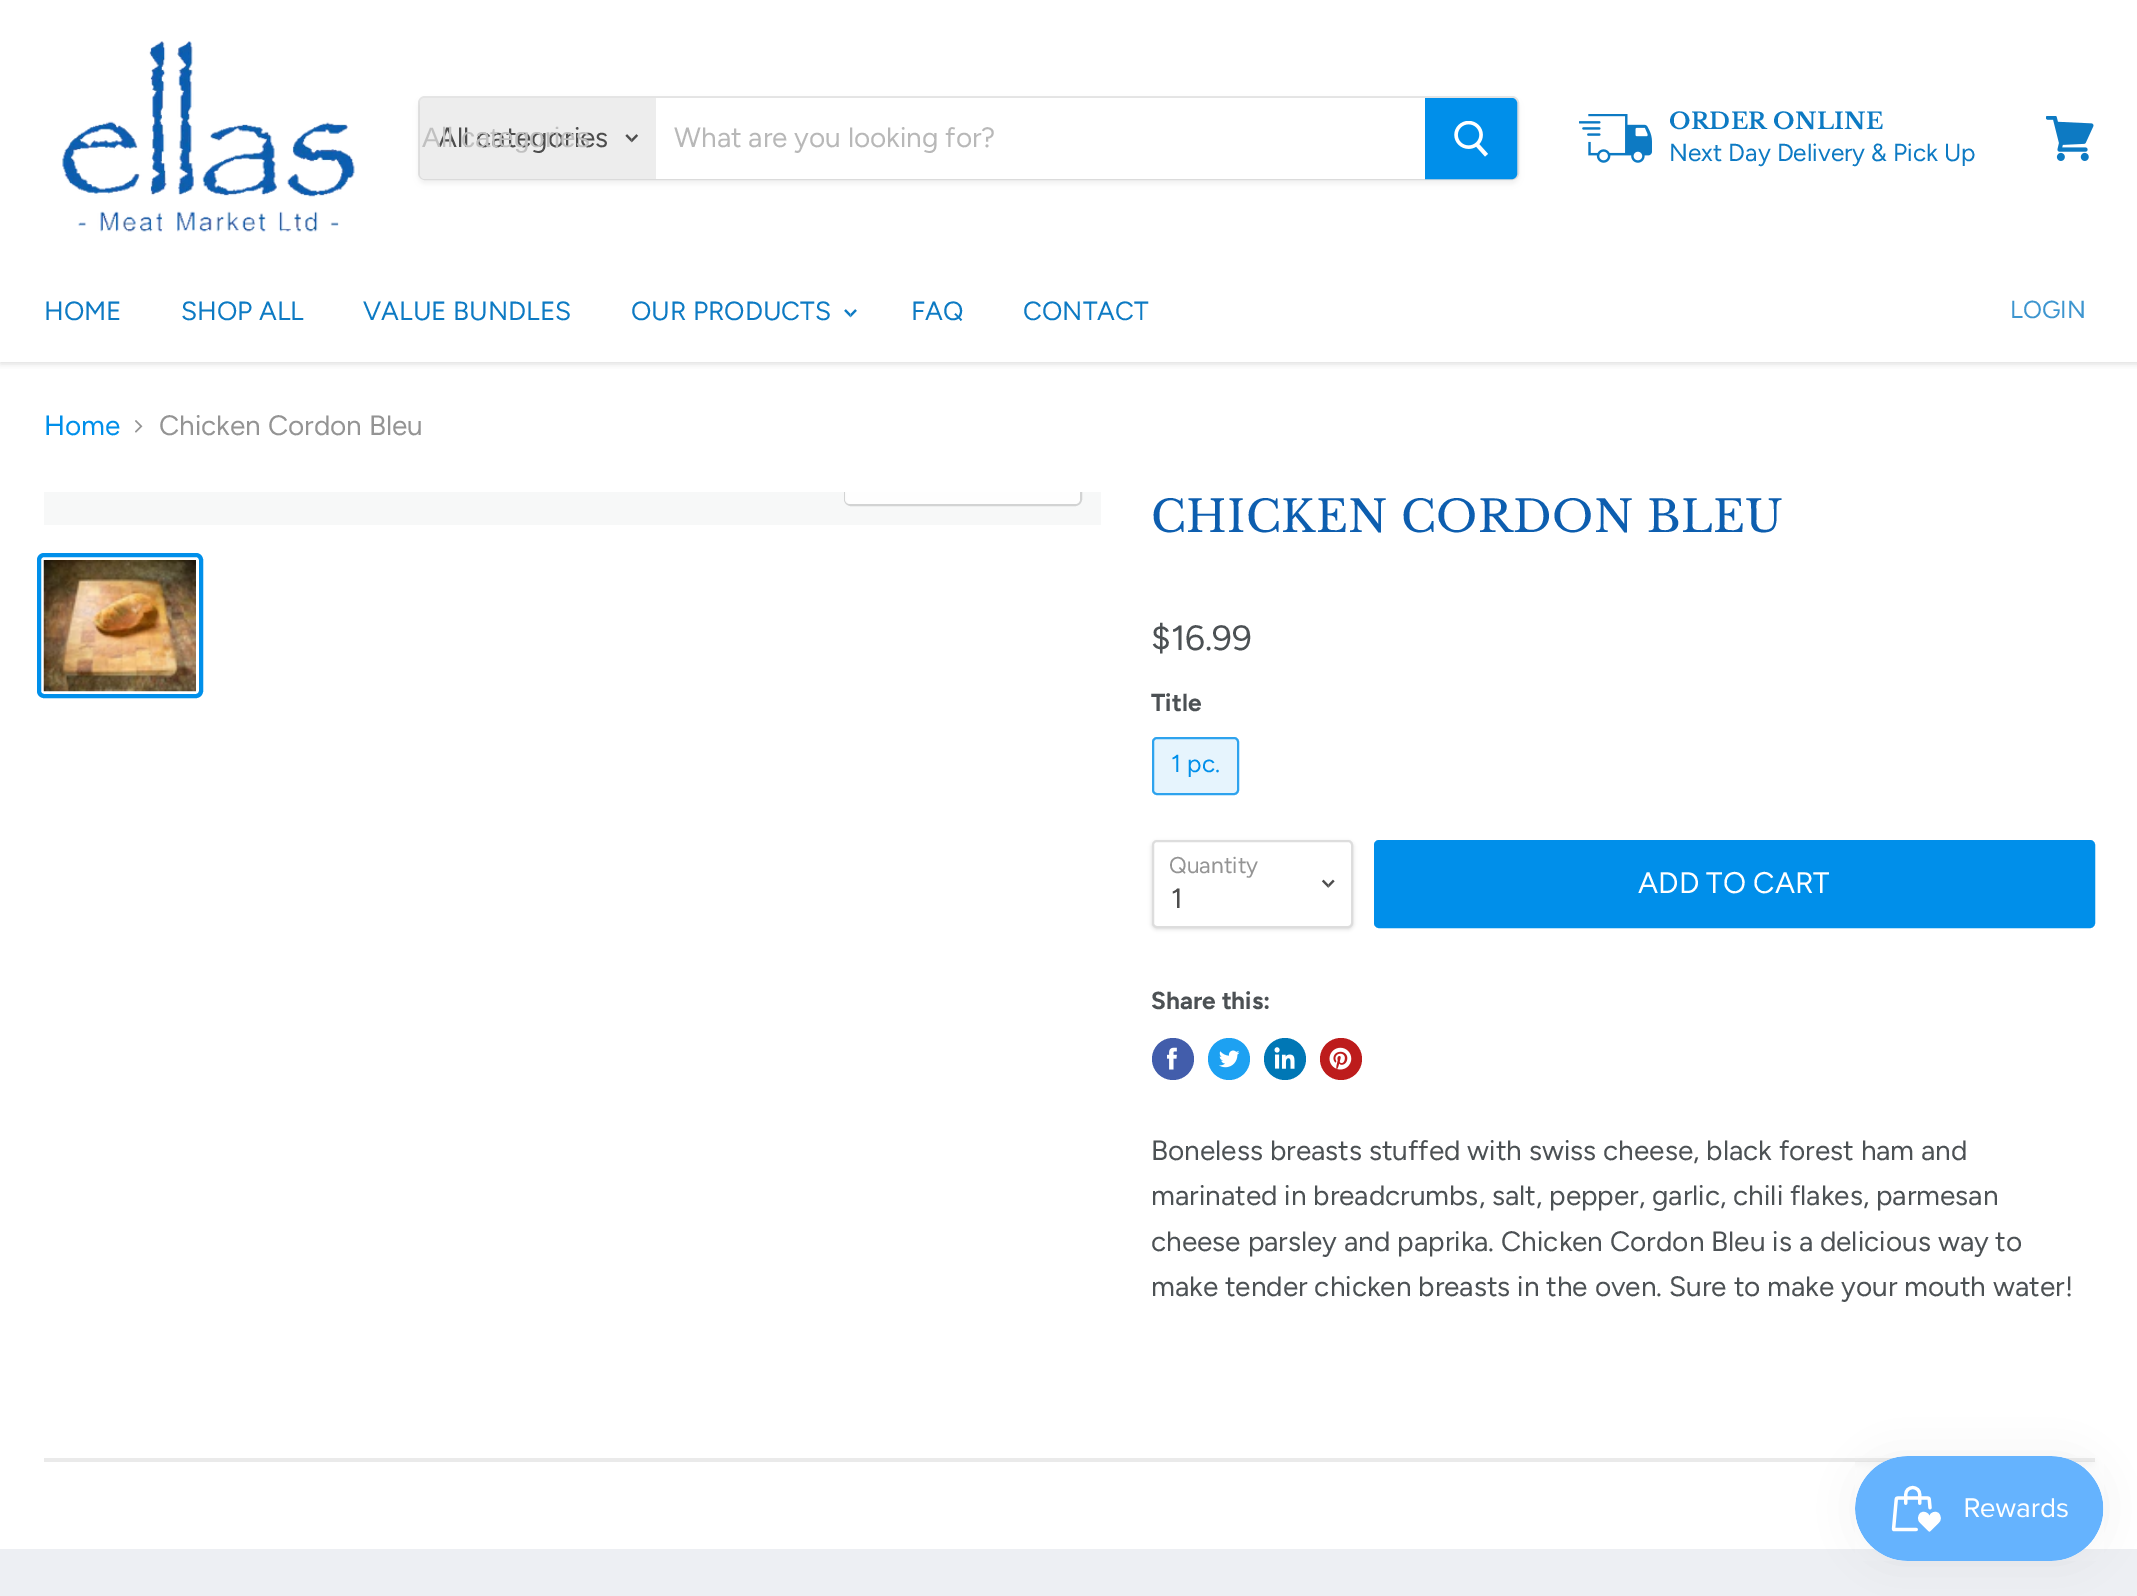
%!PS-Adobe-3.0
%%BoundingBox: 0 0 2137 1596
%%LanguageLevel: 3
%%Pages: 1
%%EndComments
%%BeginProlog
/setink { dup -16 bitshift 255 div exch dup -8 bitshift 255 and 255 div exch 255 and 255 div setrgbcolor } def
/usefont { [ exch dup neg 0 0 3 -1 roll 0 0 ] selectfont } def
/setalpha { dup .setfillconstantalpha .setstrokeconstantalpha } def
/disc { newpath 0 360 arc closepath } def
/rrect { 5 dict begin { /r /h /w /y /x } { exch def } forall
  x r add y moveto x w add y 2 copy h add r arct x w add y h add x 1 index r arct
  x y h add x y r arct x y 2 copy exch w add exch r arct closepath end } def
/softshadow { 12 dict begin { /a /b /q /h /w /y /x } { exch def } forall gsave /was 0 def
  9 -2 -9 { dup b mul 4 div /e exch def 1 sub .425 mul 2.718 exch exp 1 add a .99 .min exch div /now exch def
    1 1 now sub 1 was sub div sub setalpha /was now def
    w h .min e 2 mul add 0 gt { x e sub y e sub w e 2 mul add h e 2 mul add
      q e add b .6 mul add w h .min 2 div e add .min 0 .max rrect fill } if } for grestore end } def
/drawimage { 5 dict begin { /h /w /y /x /name } { exch def } forall
  gsave x y translate w h scale
  w h 8 [w 0 0 h 0 0] name (r) file false 3 colorimage grestore end } def
%%EndProlog
%%BeginSetup
<< /PageSize [2137 1596] /PageUsesTransparency true >> setpagedevice
%%EndSetup
%%Page: 1 1
0 .pushpdf14devicefilter
0 1596 translate 1 -1 scale
4 setmiterlimit
16#FFFFFF setink
0 0 2137 1596 rectfill
gsave
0 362 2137 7 rectclip
16#7F7F7F setink
0 2 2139 362 0 3.5 0.25 softshadow
grestore
(img1.raw) 62 41 293 191 drawimage
16#7F7F7F setink
418 100 1101 84 7 2.5 0.11 softshadow
0.2 setalpha
2 setlinewidth
419 97 1099 82 6 rrect stroke
1 setalpha
16#EDEDED setink
425 98 moveto 656 98 lineto 656 179 lineto 425 179 lineto 422 179 420 177 420 174 curveto 420 103 lineto 420 100 422 98 425 98 curveto closepath fill
/Figtree-Regular 28 usefont
16#4D4D4D setink
438 147 moveto (All categories) show
/LiberationSans-Regular 28 usefont
16#C0C0C0 setink
422 147 moveto (All categories) show
(img2.raw) 625 134 14 9 drawimage
16#FFFFFF setink
656 98 769 81 rectfill
/Figtree-Regular 28 usefont
16#B8B8B8 setink
674 147 moveto (What are you looking for?) show
16#008FEA setink
1426 99 moveto 1512 99 lineto 1514 99 1516 101 1516 103 curveto 1516 174 lineto 1516 176 1514 178 1512 178 curveto 1426 178 lineto closepath gsave fill grestore
stroke
(img3.raw) 1454 121 34 36 drawimage
(img4.raw) 1579 114 73 49 drawimage
/LibreBaskerville-Bold 22.75 usefont
16#0D7AC3 setink
1669 129 moveto 0.25 0 (ORDER ONLINE) ashow
/Figtree-Regular 24.5 usefont
1669 161 moveto (Next Day Delivery & Pick Up) show
(img5.raw) 2046 116 48 45 drawimage
/Figtree-Regular 26.25 usefont
[
    [(HOME) 44 320]
    [(SHOP ALL) 181 320]
    [(VALUE BUNDLES) 363 320]
    [(OUR PRODUCTS) 631 320]
] { aload pop moveto show } forall
(img6.raw) 844 309 13 9 drawimage
911 320 moveto (FAQ) show
1023 320 moveto (CONTACT) show
/Figtree-Regular 24.5 usefont
16#3D95CF setink
2010 318 moveto (LOGIN) show
/Figtree-Regular 28 usefont
16#008FEA setink
44 435 moveto (Home) show
(img7.raw) 135 420 8 13 drawimage
16#949494 setink
159 435 moveto (Chicken Cordon Bleu) show
16#F7F8F8 setink
44 492 1057 33 rectfill
gsave
44 492 1057 33 rectclip
16#D2D3D3 setink
845 453 236 52 6 rrect stroke
grestore
0.9 setalpha
16#FFFFFF setink
845 492 moveto 1080 492 lineto 1080 499 lineto 1080 502 1078 504 1075 504 curveto 850 504 lineto 847 504 845 502 845 499 curveto closepath fill
1 setalpha
16#008FEA setink
4 setlinewidth
39 555 162 141 5 rrect stroke
(img8.raw) 43 560 153 132 drawimage
/LibreBaskerville-Regular 43.75 usefont
16#0D5EAF setink
1151 532 moveto 0.4 0 (CHICKEN CORDON BLEU) ashow
/Figtree-Regular 35 usefont
16#4C5154 setink
1151 650 moveto ($16.99) show
/Figtree-Bold 24.5 usefont
1151 711 moveto (Title) show
16#E6F4FD setink
1152 737 87 58 5 rrect fill
0.8 setalpha
16#008FEA setink
2 setlinewidth
1153 738 85 56 4 rrect stroke
/Figtree-Regular 24.5 usefont
1 setalpha
1171 772 moveto (1 pc.) show
16#000000 setink
1152 842 201 87 5 2 0.15 softshadow
16#FFFFFF setink
1153 841 199 86 4 rrect gsave fill grestore
16#DDDDDD setink
stroke
/Figtree-Regular 22.75 usefont
16#949494 setink
1169 873 moveto (Quantity) show
(img9.raw) 1321 879 14 9 drawimage
/Figtree-Regular 28 usefont
16#4D4D4D setink
1171 908 moveto (1) show
16#008FEA setink
1375 841 719 86 4 rrect gsave fill grestore
stroke
/Figtree-Regular 29.75 usefont
16#FFFFFF setink
1638 893 moveto (ADD TO CART) show
/Figtree-Bold 24.5 usefont
16#4C5154 setink
1151 1009 moveto (Share this:) show
16#425DAB setink
1173 1059 21 disc fill
(img10.raw) 1167 1047 10 23 drawimage
16#1DA1F2 setink
1229 1059 21 disc fill
(img11.raw) 1219 1050 21 18 drawimage
16#0077B5 setink
1285 1059 21 disc fill
(img12.raw) 1274 1047 21 22 drawimage
16#BD1C1C setink
1341 1059 21 disc fill
(img13.raw) 1329 1047 23 23 drawimage
/Figtree-Regular 28 usefont
16#4C5154 setink
[
    [(Boneless breasts stuffed with swiss cheese, black forest ham and) 1151 1160]
    [(marinated in breadcrumbs, salt, pepper, garlic, chili flakes, parmesan) 1151 1205]
    [(cheese parsley and paprika. Chicken Cordon Bleu is a delicious way to) 1151 1251]
    [(make tender chicken breasts in the oven. Sure to make your mouth water!) 1151 1296]
] { aload pop moveto show } forall
0.16 setalpha
16#7F7F7F setink
44 1458 2051 4 rectfill
1 setalpha
16#EDEFF3 setink
0 1549 2137 47 rectfill
16#000000 setink
1855 1456 249 105 52.5 22 0.05 softshadow
(img14.raw) 1855 1456 249 105 drawimage
.poppdf14devicefilter showpage
%%EOF
